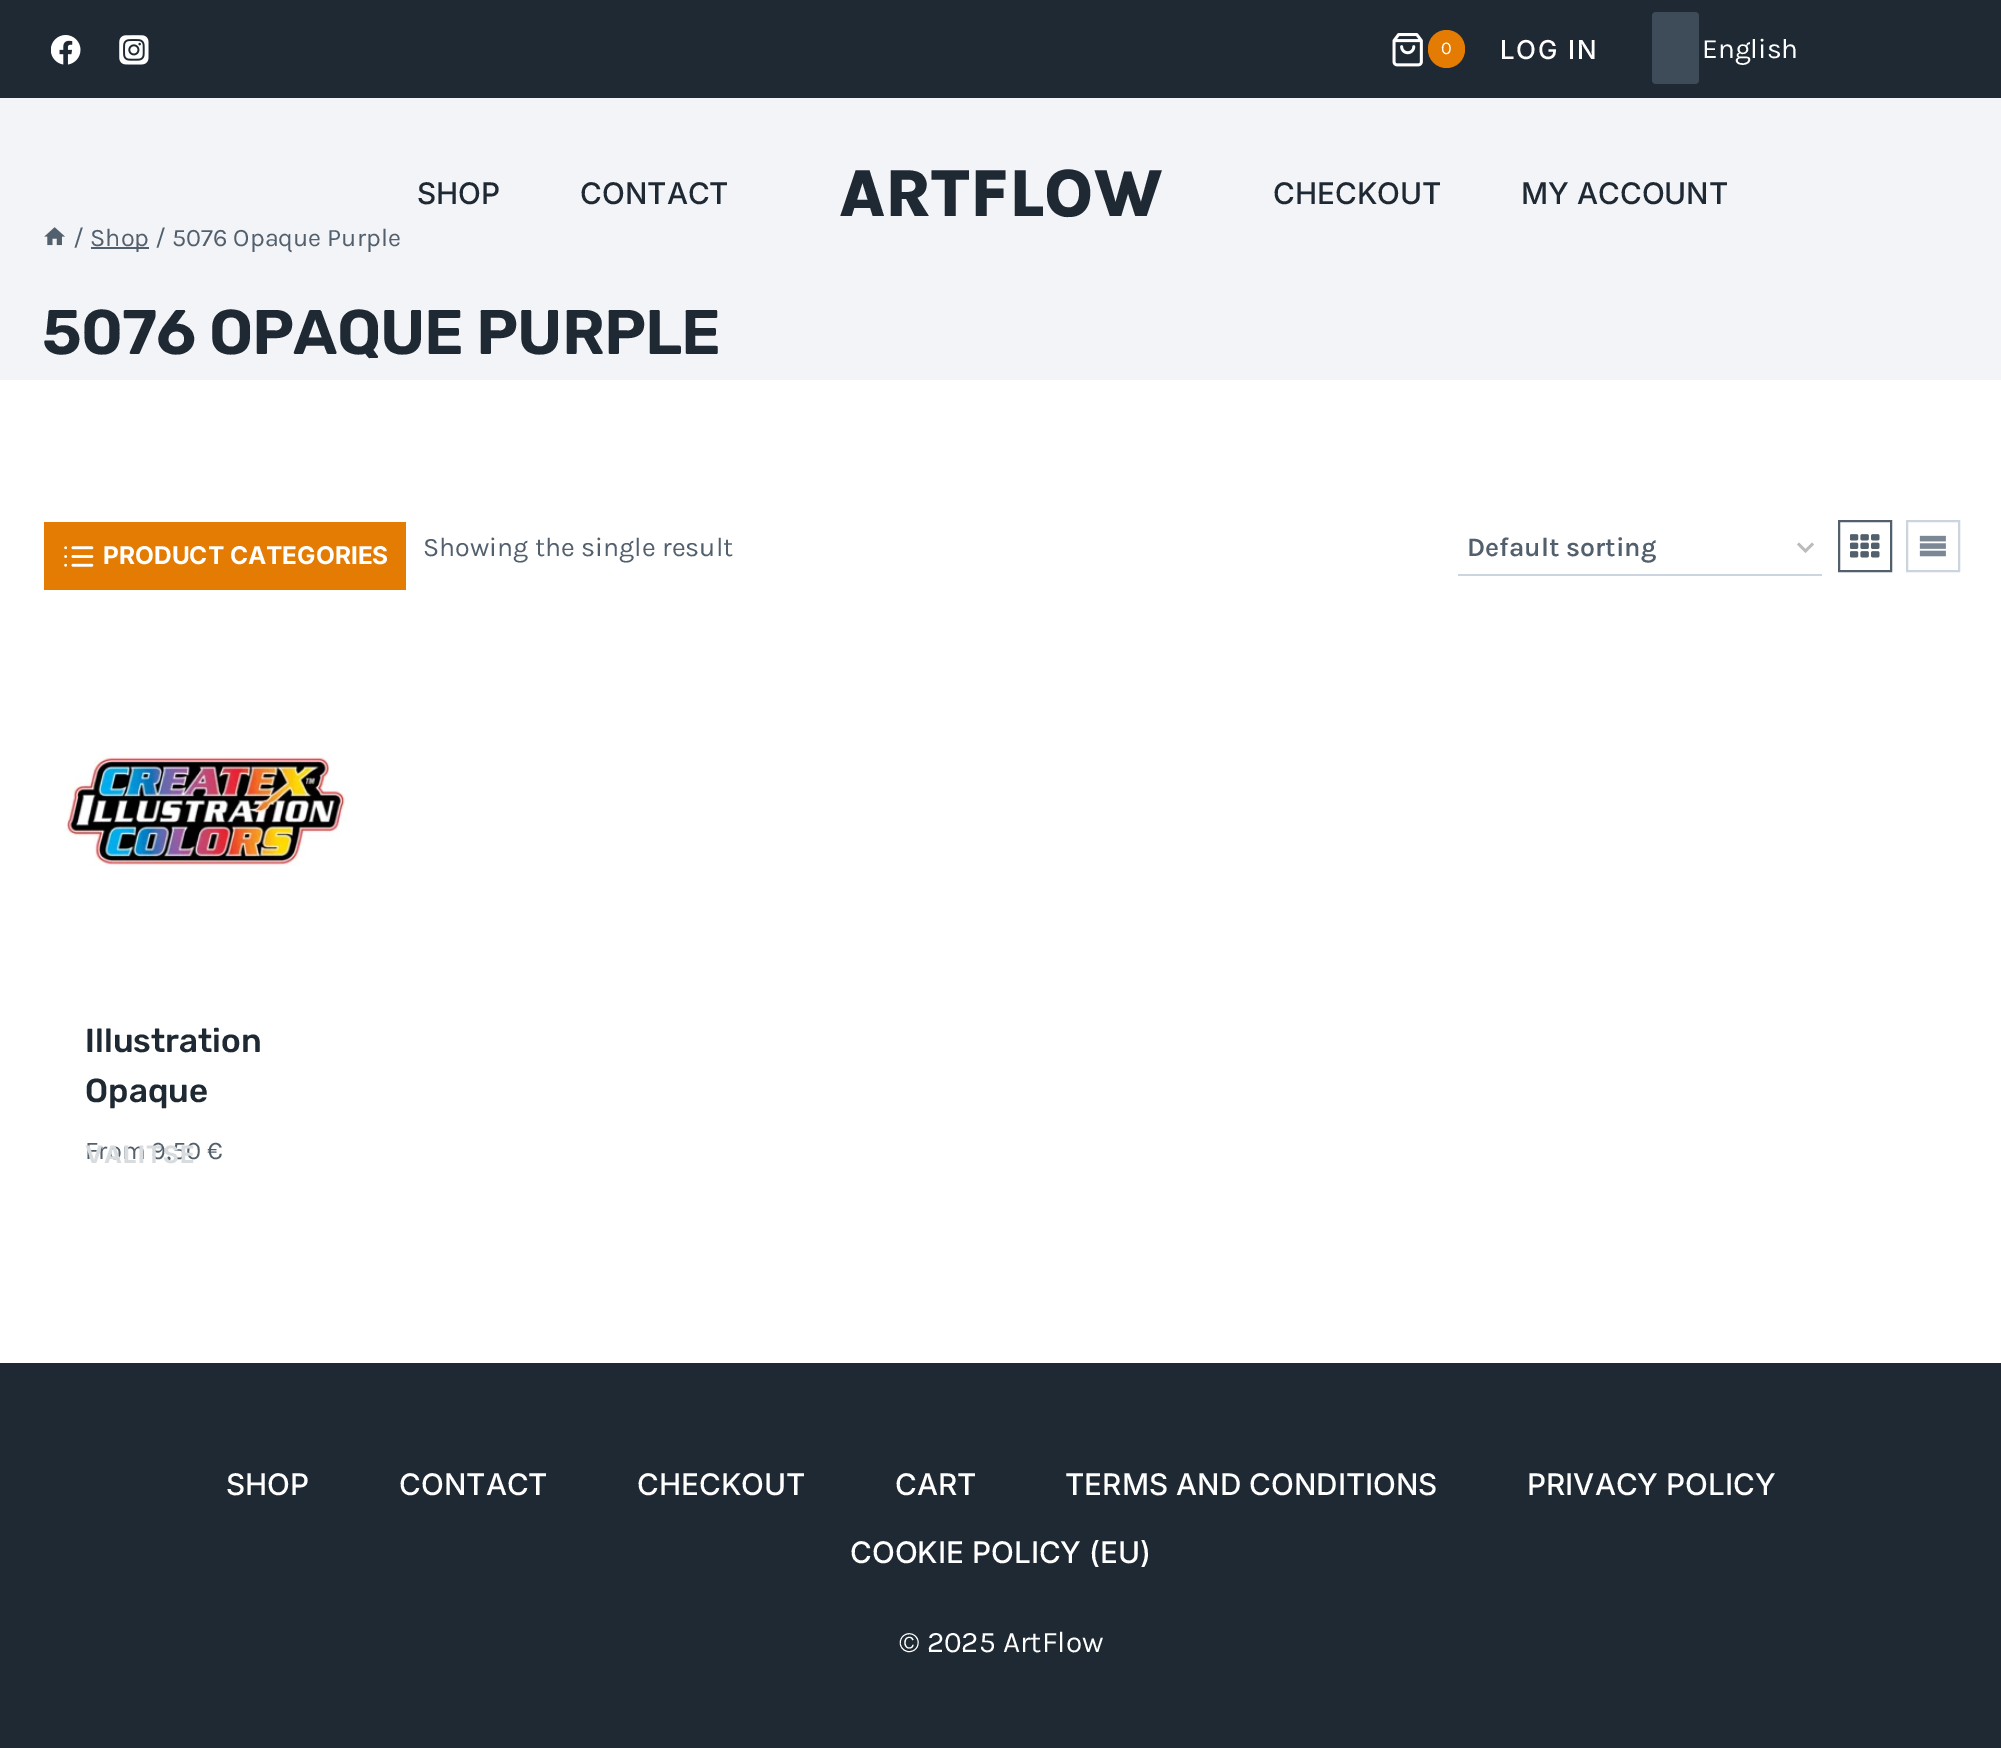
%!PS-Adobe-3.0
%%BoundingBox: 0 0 2001 1748
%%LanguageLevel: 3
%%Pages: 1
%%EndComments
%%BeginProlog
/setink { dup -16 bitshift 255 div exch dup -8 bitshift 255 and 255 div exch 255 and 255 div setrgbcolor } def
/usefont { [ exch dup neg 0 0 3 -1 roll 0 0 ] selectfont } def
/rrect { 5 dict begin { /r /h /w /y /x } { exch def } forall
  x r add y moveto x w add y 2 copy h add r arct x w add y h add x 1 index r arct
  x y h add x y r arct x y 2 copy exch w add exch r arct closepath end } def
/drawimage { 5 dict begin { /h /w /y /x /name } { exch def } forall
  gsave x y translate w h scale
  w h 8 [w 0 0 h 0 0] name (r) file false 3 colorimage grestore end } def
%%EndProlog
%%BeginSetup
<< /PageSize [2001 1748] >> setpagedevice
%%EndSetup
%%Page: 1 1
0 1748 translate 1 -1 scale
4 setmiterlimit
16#FFFFFF setink
0 0 2001 1748 rectfill
16#1F2933 setink
0 0 2001 98 rectfill
(img1.raw) 51 35 30 30 drawimage
(img2.raw) 119 35 30 30 drawimage
(img3.raw) 1392 33 31 34 drawimage
16#E47B02 setink
1428 30 37 38 18.5 rrect fill
/Karla-Regular 18 usefont
16#FFFFFF setink
1441 54 moveto (0) show
/Inter-Medium 26 usefont
1500 59 moveto 1.75 0 (LOG IN) ashow
16#3E4C59 setink
1652 12 47 72 4 rrect fill
/Karla-Regular 28 usefont
16#FFFFFF setink
1702 58 moveto (English) show
16#F3F4F7 setink
0 98 2001 282 rectfill
/Inter-Medium 29.75 usefont
16#1F2933 setink
417 204 moveto (SHOP) show
580 204 moveto (CONTACT) show
/Karla-ExtraBold 68.25 usefont
839 216 moveto (ARTFLOW) show
/Inter-Medium 29.75 usefont
1273 204 moveto (CHECKOUT) show
1521 204 moveto (MY ACCOUNT) show
(img4.raw) 44 227 21 19 drawimage
/Karla-Regular 25.25 usefont
16#52606D setink
73 246 moveto (/) show
91 247 58 2 rectfill
90 246 moveto (Shop / 5076 Opaque Purple) show
/Rubik-SemiBold 63 usefont
16#1F2933 setink
42 354 moveto -0.9 0 (5076 OPAQUE PURPLE) ashow
16#E47B02 setink
44 522 362 68 rectfill
(img5.raw) 64 546 30 21 drawimage
/Inter-Bold 24.5 usefont
16#FFFFFF setink
103 564 moveto (PRODUCT CATEGORIES) show
/Karla-Regular 26.75 usefont
16#52606D setink
423 556 moveto (Showing the single result) show
16#BBBBBB setink
2.5 setlinewidth
1798 543.5 moveto 1805.5 551 lineto 1813 543.5 lineto stroke
16#CBD5E0 setink
1458 574 364 2 rectfill
/Karla-SemiBold 26.75 usefont
16#52606D setink
1467 556 moveto (Default sorting) show
2 setlinewidth
1839 521 52 50 rectstroke
(img6.raw) 1850 534 30 24 drawimage
16#CBD5E0 setink
1907 521 52 50 rectstroke
(img7.raw) 1919 535 27 22 drawimage
(img8.raw) 66 755 282 111 drawimage
/Rubik-Medium 33.25 usefont
16#1F2933 setink
85 1052 moveto (Illustration) show
85 1102 moveto (Opaque) show
/Karla-Regular 25.5 usefont
16#52606D setink
85 1159 moveto (From 9,50 €) show
/Inter-Bold 24 usefont
16#D9DCDF setink
85 1163 moveto 1.25 0 (VALITSE) ashow
16#1F2933 setink
0 1363 2001 385 rectfill
/Inter-Medium 29.75 usefont
16#FFFFFF setink
[
    [(SHOP) 226 1495]
    [(CONTACT) 399 1495]
    [(CHECKOUT) 637 1495]
    [(CART) 895 1495]
    [(TERMS AND CONDITIONS) 1065 1495]
    [(PRIVACY POLICY) 1527 1495]
    [(COOKIE POLICY \(EU\)) 850 1563]
] { aload pop moveto show } forall
/Karla-Regular 29.75 usefont
899 1652 moveto (© 2025 ArtFlow) show
showpage
%%EOF
